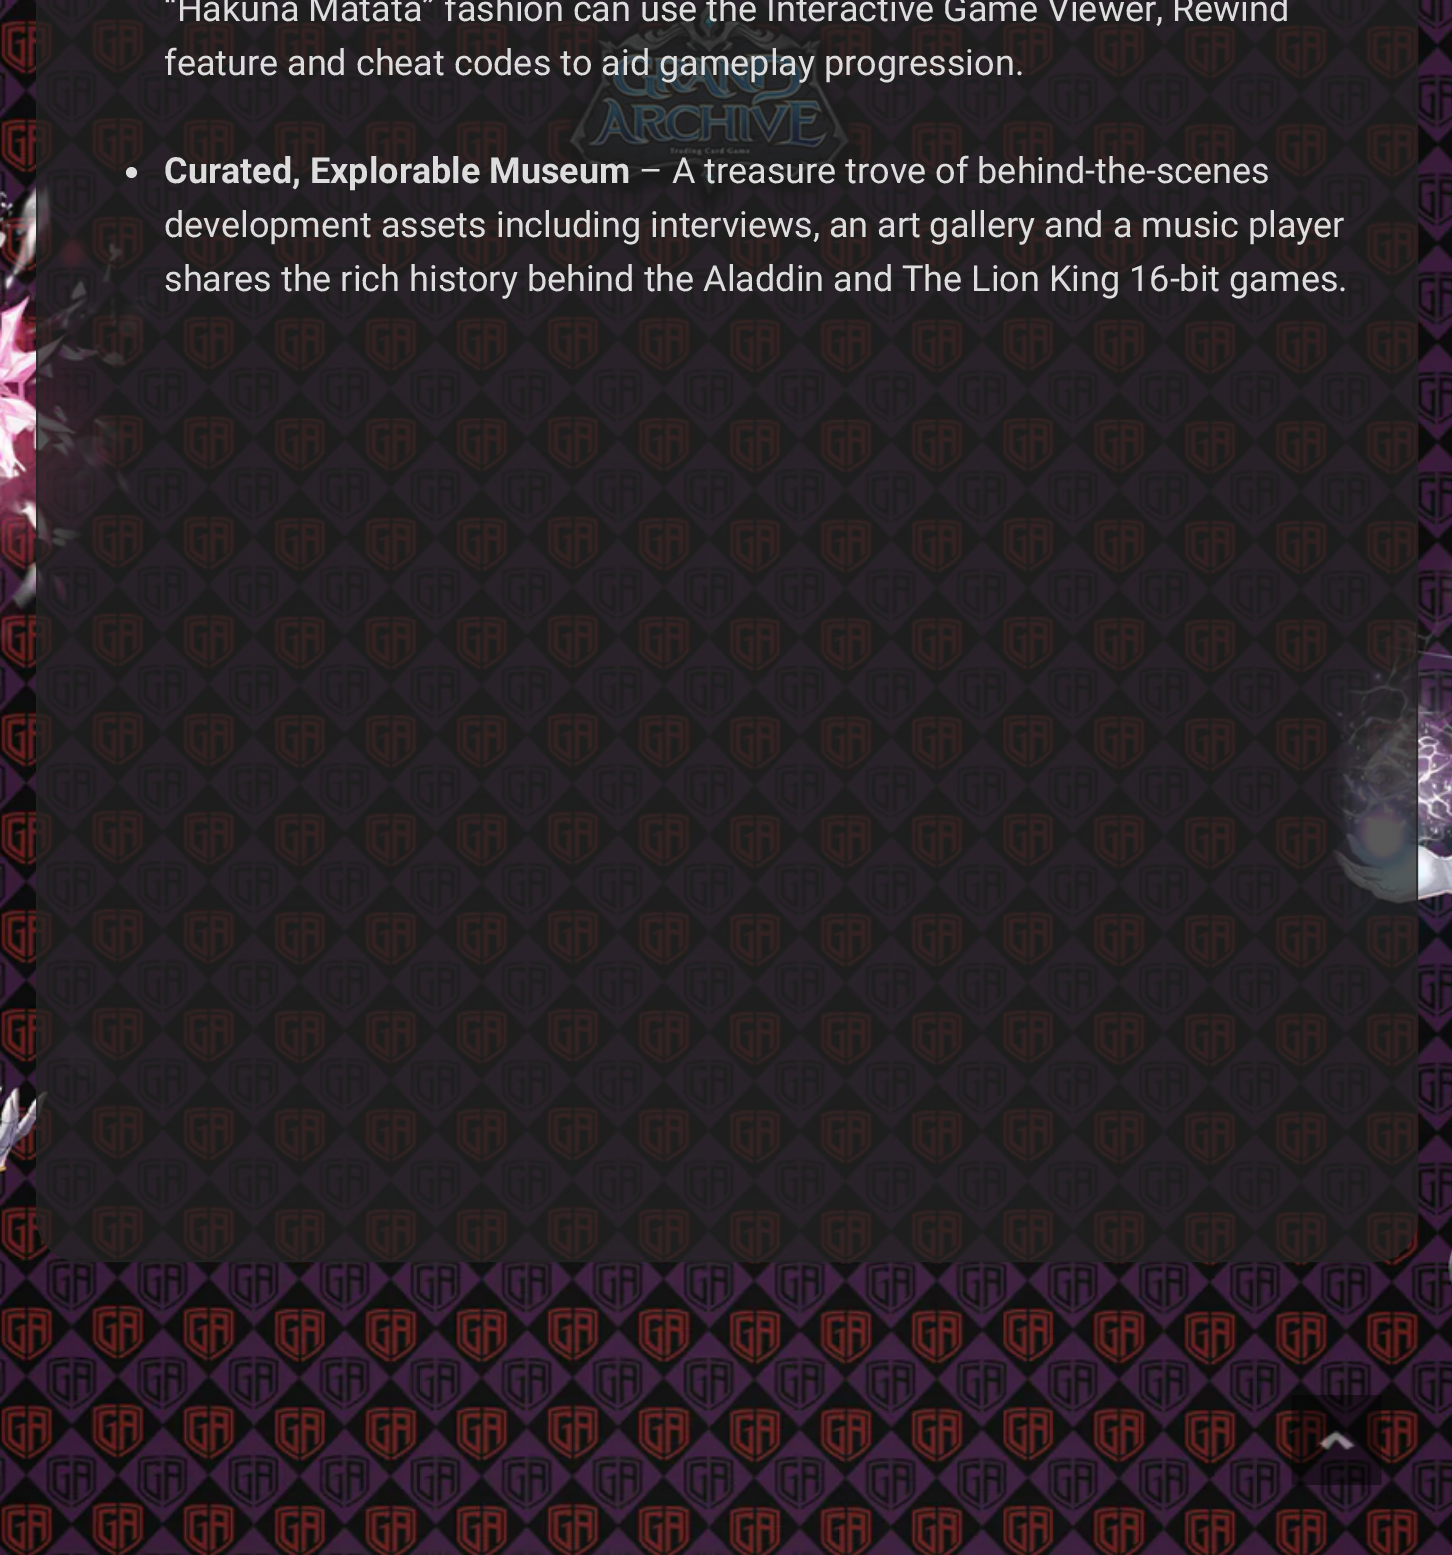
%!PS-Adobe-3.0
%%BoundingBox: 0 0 1452 1555
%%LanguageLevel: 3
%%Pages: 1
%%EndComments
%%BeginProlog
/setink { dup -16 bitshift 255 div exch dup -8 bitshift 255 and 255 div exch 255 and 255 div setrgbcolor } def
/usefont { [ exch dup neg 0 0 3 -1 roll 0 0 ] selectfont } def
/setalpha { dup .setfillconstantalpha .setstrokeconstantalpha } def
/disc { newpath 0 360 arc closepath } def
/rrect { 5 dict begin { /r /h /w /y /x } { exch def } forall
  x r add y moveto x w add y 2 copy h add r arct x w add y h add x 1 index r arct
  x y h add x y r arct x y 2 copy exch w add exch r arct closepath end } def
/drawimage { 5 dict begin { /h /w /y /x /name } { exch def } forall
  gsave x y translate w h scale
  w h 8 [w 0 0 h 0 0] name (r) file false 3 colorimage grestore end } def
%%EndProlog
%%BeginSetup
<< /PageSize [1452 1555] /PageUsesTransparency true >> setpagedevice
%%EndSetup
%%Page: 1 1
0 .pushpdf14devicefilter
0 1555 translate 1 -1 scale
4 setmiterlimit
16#FFFFFF setink
0 0 1452 1555 rectfill
(img1.raw) 0 0 1452 1555 drawimage
0.75 setalpha
16#222222 setink
36 -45 1382 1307 45 rrect fill
0.7 setalpha
2 setlinewidth
37 -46 1380 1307 44 rrect stroke
/Roboto-Regular 36 usefont
1 setalpha
16#DDDDDD setink
164 21 moveto (“Hakuna Matata” fashion can use the Interactive Game Viewer, Rewind) show
164 75 moveto (feature and cheat codes to aid gameplay progression.) show
131.5 172.5 5.5 disc fill
/Roboto-Bold 36 usefont
164 183 moveto (Curated, Explorable Museum) show
/Roboto-Regular 36 usefont
[
    [(– A treasure trove of behind-the-scenes) 639 183]
    [(development assets including interviews, an art gallery and a music player) 164 237]
    [(shares the rich history behind the Aladdin and The Lion King 16-bit games.) 164 291]
] { aload pop moveto show } forall
(img2.raw) 1291 1395 91 90 drawimage
.poppdf14devicefilter showpage
%%EOF
